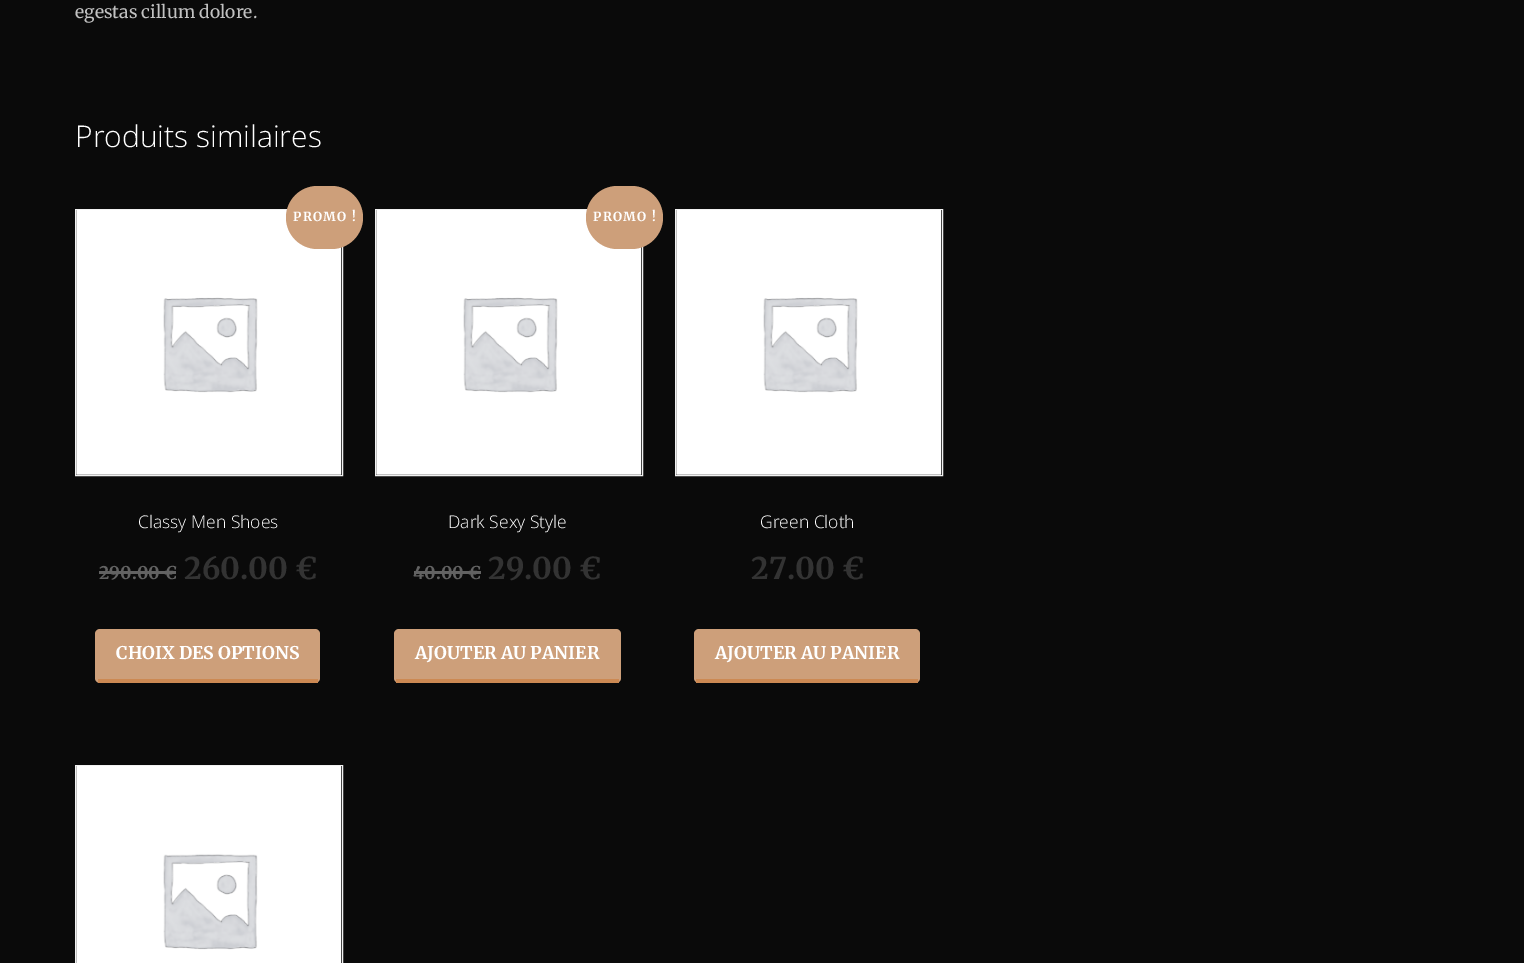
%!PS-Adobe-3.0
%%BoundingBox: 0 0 1524 963
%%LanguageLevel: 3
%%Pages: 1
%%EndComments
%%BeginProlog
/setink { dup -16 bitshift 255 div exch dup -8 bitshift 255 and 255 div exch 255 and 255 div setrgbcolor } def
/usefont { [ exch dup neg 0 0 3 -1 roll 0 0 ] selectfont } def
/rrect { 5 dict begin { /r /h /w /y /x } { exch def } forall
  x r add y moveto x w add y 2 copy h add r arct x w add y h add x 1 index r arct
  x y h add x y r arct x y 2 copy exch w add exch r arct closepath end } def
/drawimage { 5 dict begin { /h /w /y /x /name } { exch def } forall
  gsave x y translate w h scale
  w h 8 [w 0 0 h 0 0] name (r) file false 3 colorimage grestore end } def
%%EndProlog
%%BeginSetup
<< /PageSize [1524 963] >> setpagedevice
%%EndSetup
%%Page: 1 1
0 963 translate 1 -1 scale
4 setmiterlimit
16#0A0A0A setink
0 0 1524 963 rectfill
/Merriweather-Regular 17.5 usefont
16#C1C1C1 setink
75 18 moveto (egestas cillum dolore.) show
/OpenSans-Light 30 usefont
16#FFFFFF setink
75 147 moveto (Produits similaires) show
16#F2F2F2 setink
75.5 209.5 267 266 rectstroke
(img1.raw) 76 210 266 265 drawimage
16#CD9F7A setink
286 186 77 63 31.5 rrect fill
/Merriweather-Bold 12.5 usefont
16#FFFFFF setink
293 221 moveto 1.25 0 (PROMO !) ashow
/OpenSans-Light 17.5 usefont
138 528 moveto (Classy Men Shoes) show
/Merriweather-Bold 17.5 usefont
16#626262 setink
99 579 moveto (290.00 €) show
99 571 77 3 rectfill
/Merriweather-Bold 30 usefont
16#333333 setink
184 579 moveto (260.00 €) show
16#CD9F7A setink
95 629 225 54 5 rrect fill
16#CC8953 setink
98 679 220 4 rectfill
/Merriweather-Bold 17.5 usefont
16#FFFFFF setink
116 659 moveto (CHOIX DES OPTIONS) show
16#F2F2F2 setink
375.5 209.5 267 266 rectstroke
(img1.raw) 376 210 266 265 drawimage
16#CD9F7A setink
586 186 77 63 31.5 rrect fill
/Merriweather-Bold 12.5 usefont
16#FFFFFF setink
593 221 moveto 1.25 0 (PROMO !) ashow
/OpenSans-Light 17.5 usefont
448 528 moveto (Dark Sexy Style) show
/Merriweather-Bold 17.5 usefont
16#626262 setink
413 579 moveto (40.00 €) show
414 571 67 3 rectfill
/Merriweather-Bold 30 usefont
16#333333 setink
488 579 moveto (29.00 €) show
16#CD9F7A setink
394 629 227 54 5 rrect fill
16#CC8953 setink
396 679 223 4 rectfill
/Merriweather-Bold 17.5 usefont
16#FFFFFF setink
415 659 moveto (AJOUTER AU PANIER) show
16#F2F2F2 setink
675.5 209.5 267 266 rectstroke
(img1.raw) 676 210 266 265 drawimage
/OpenSans-Light 17.5 usefont
16#FFFFFF setink
760 528 moveto (Green Cloth) show
/Merriweather-Bold 30 usefont
16#333333 setink
751 579 moveto (27.00 €) show
16#CD9F7A setink
694 629 226 54 5 rrect fill
16#CC8953 setink
696 679 222 4 rectfill
/Merriweather-Bold 17.5 usefont
16#FFFFFF setink
715 659 moveto (AJOUTER AU PANIER) show
16#F2F2F2 setink
75.5 765.5 267 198 rectstroke
(img2.raw) 76 766 266 197 drawimage
showpage
%%EOF
